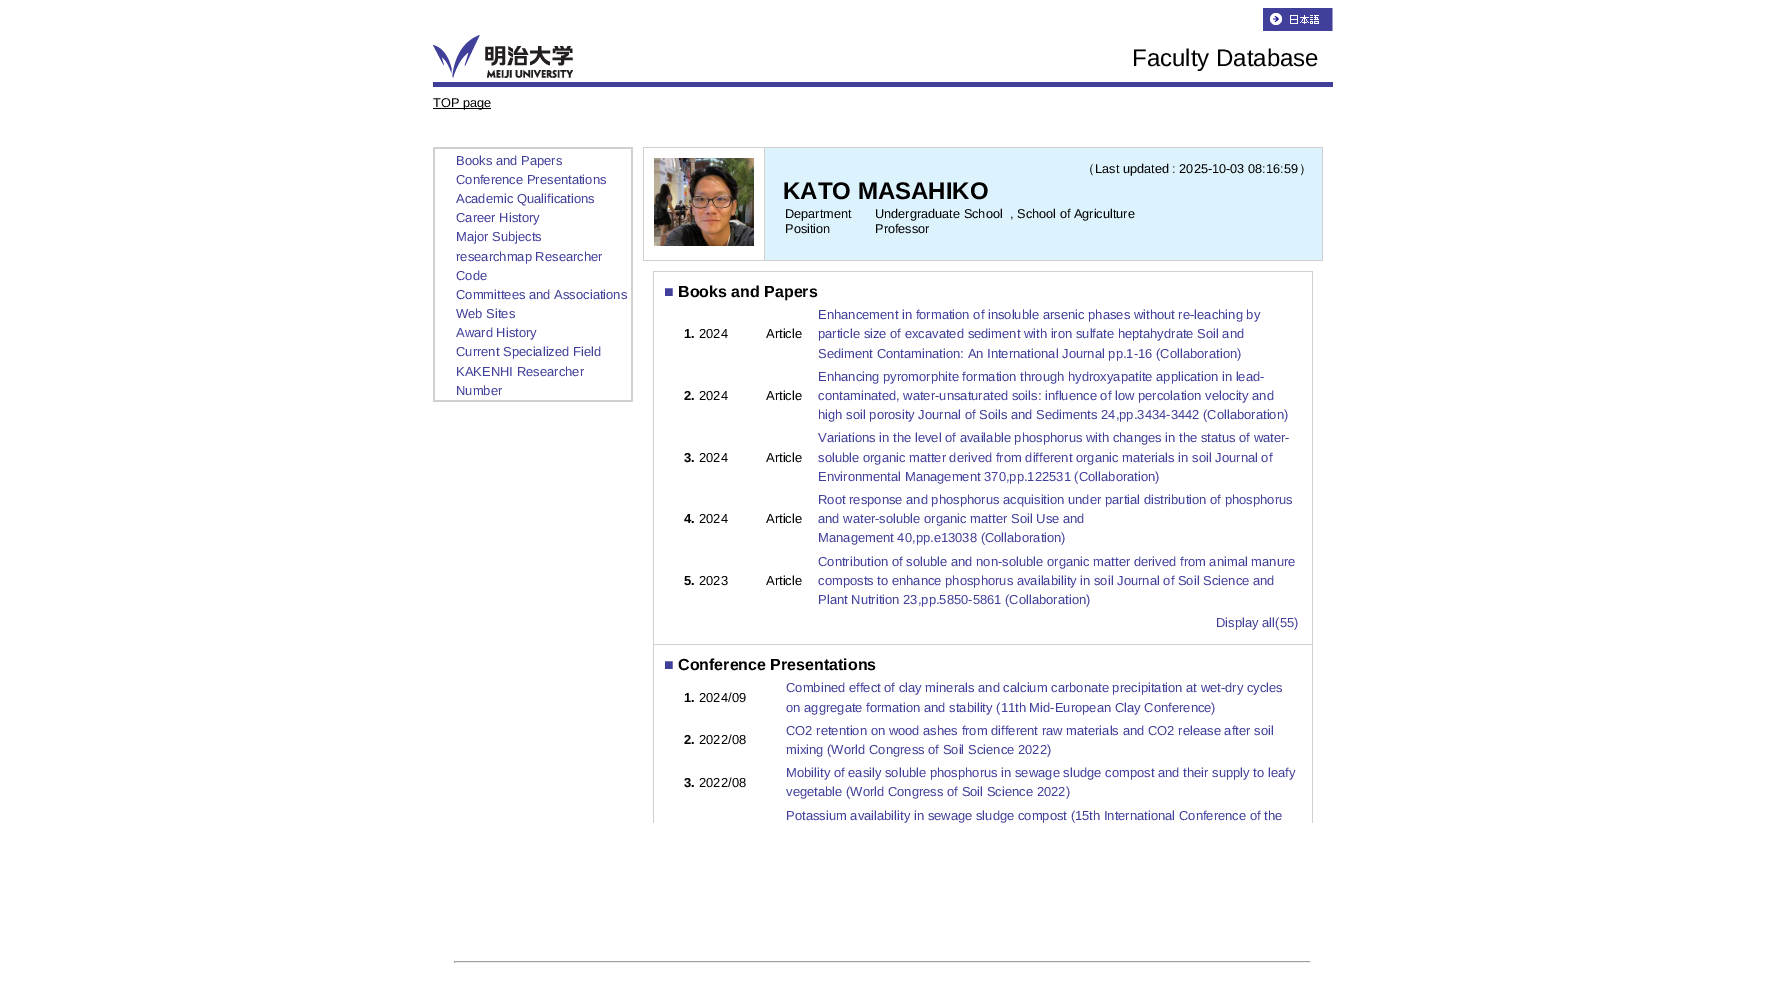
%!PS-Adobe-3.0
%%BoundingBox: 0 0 1765 1004
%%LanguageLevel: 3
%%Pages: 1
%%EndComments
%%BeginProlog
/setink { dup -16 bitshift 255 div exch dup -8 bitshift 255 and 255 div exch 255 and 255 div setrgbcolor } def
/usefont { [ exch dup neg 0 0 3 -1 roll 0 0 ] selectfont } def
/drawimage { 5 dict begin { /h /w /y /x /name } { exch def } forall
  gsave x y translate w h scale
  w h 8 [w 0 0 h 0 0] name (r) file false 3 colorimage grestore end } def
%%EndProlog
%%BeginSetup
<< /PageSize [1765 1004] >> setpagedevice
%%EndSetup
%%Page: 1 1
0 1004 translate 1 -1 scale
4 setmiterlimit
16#FFFFFF setink
0 0 1765 1004 rectfill
(img1.raw) 1263 8 70 23 drawimage
(img2.raw) 433 35 140 43 drawimage
/LiberationSans-Regular 24 usefont
16#000000 setink
1132 66 moveto (Faculty Database) show
16#403F99 setink
433 82 900 5 rectfill
16#000000 setink
433 108 58 1 rectfill
/LiberationSans-Regular 12.75 usefont
433 107 moveto (TOP page) show
16#D0D0D0 setink
433 147 200 255 rectfill
16#FFFFFF setink
435 149 196 251 rectfill
/LiberationSans-Regular 13 usefont
16#403F99 setink
[
    [(Books and Papers) 456 165]
    [(Conference Presentations) 456 184]
    [(Academic Qualifications) 456 203]
    [(Career History) 456 222]
    [(Major Subjects) 456 241]
    [(researchmap Researcher) 456 261]
    [(Code) 456 280]
    [(Committees and Associations) 456 299]
    [(Web Sites) 456 318]
    [(Award History) 456 337]
    [(Current Specialized Field) 456 356]
    [(KAKENHI Researcher) 456 376]
    [(Number) 456 395]
] { aload pop moveto show } forall
16#D0D0D0 setink
643 147 680 114 rectfill
16#FFFFFF setink
644 148 120 112 rectfill
(img3.raw) 654 158 100 88 drawimage
16#DCF2FC setink
765 148 557 112 rectfill
/WenQuanYiZenHei-Medium 12.75 usefont
16#000000 setink
1082 173 moveto (（) show
/LiberationSans-Regular 12.75 usefont
1095 173 moveto (Last updated : 2025-10-03 08:16:59) show
/WenQuanYiZenHei-Medium 12.75 usefont
1299 173 moveto (）) show
/LiberationSans-Bold 24 usefont
783 199 moveto (KATO MASAHIKO) show
/LiberationSans-Regular 12.75 usefont
[
    [(Department) 785 218]
    [(Undergraduate School) 875 218]
    [(, School of Agriculture) 1010 218]
    [(Position) 785 233]
    [(Professor) 875 233]
] { aload pop moveto show } forall
16#D0D0D0 setink
653 271 660 552 rectfill
16#FFFFFF setink
654 272 658 372 rectfill
/LiberationSans-Regular 16 usefont
16#403F99 setink
664 297 moveto (■) show
/LiberationSans-Bold 16 usefont
16#000000 setink
678 297 moveto (Books and Papers) show
/LiberationSans-Bold 13 usefont
684 338 moveto (1.) show
/LiberationSans-Regular 13 usefont
699 338 moveto (2024) show
766 338 moveto (Article) show
16#403F99 setink
[
    [(Enhancement in formation of insoluble arsenic phases without re-leaching by) 818 319]
    [(particle size of excavated sediment with iron sulfate heptahydrate Soil and) 818 338]
    [(Sediment Contamination: An International Journal pp.1-16 \(Collaboration\)) 818 358]
] { aload pop moveto show } forall
/LiberationSans-Bold 13 usefont
16#000000 setink
684 400 moveto (2.) show
/LiberationSans-Regular 13 usefont
699 400 moveto (2024) show
766 400 moveto (Article) show
16#403F99 setink
[
    [(Enhancing pyromorphite formation through hydroxyapatite application in lead-) 818 381]
    [(contaminated, water-unsaturated soils: influence of low percolation velocity and) 818 400]
    [(high soil porosity Journal of Soils and Sediments 24,pp.3434-3442 \(Collaboration\)) 818 419]
] { aload pop moveto show } forall
/LiberationSans-Bold 13 usefont
16#000000 setink
684 462 moveto (3.) show
/LiberationSans-Regular 13 usefont
699 462 moveto (2024) show
766 462 moveto (Article) show
16#403F99 setink
[
    [(Variations in the level of available phosphorus with changes in the status of water-) 818 442]
    [(soluble organic matter derived from different organic materials in soil Journal of) 818 462]
    [(Environmental Management 370,pp.122531 \(Collaboration\)) 818 481]
] { aload pop moveto show } forall
/LiberationSans-Bold 13 usefont
16#000000 setink
684 523 moveto (4.) show
/LiberationSans-Regular 13 usefont
699 523 moveto (2024) show
766 523 moveto (Article) show
16#403F99 setink
[
    [(Root response and phosphorus acquisition under partial distribution of phosphorus) 818 504]
    [(and water-soluble organic matter Soil Use and) 818 523]
    [(Management 40,pp.e13038 \(Collaboration\)) 818 542]
] { aload pop moveto show } forall
/LiberationSans-Bold 13 usefont
16#000000 setink
684 585 moveto (5.) show
/LiberationSans-Regular 13 usefont
699 585 moveto (2023) show
766 585 moveto (Article) show
16#403F99 setink
[
    [(Contribution of soluble and non-soluble organic matter derived from animal manure) 818 566]
    [(composts to enhance phosphorus availability in soil Journal of Soil Science and) 818 585]
    [(Plant Nutrition 23,pp.5850-5861 \(Collaboration\)) 818 604]
    [(Display all\(55\)) 1216 627]
] { aload pop moveto show } forall
16#FFFFFF setink
654 645 658 178 rectfill
/LiberationSans-Regular 16 usefont
16#403F99 setink
664 670 moveto (■) show
/LiberationSans-Bold 16 usefont
16#000000 setink
678 670 moveto (Conference Presentations) show
/LiberationSans-Bold 13 usefont
684 702 moveto (1.) show
/LiberationSans-Regular 13 usefont
699 702 moveto (2024/09) show
16#403F99 setink
786 692 moveto (Combined effect of clay minerals and calcium carbonate precipitation at wet-dry cycles) show
786 712 moveto (on aggregate formation and stability \(11th Mid-European Clay Conference\)) show
/LiberationSans-Bold 13 usefont
16#000000 setink
684 744 moveto (2.) show
/LiberationSans-Regular 13 usefont
699 744 moveto (2022/08) show
16#403F99 setink
786 735 moveto (CO2 retention on wood ashes from different raw materials and CO2 release after soil) show
786 754 moveto (mixing \(World Congress of Soil Science 2022\)) show
/LiberationSans-Bold 13 usefont
16#000000 setink
684 787 moveto (3.) show
/LiberationSans-Regular 13 usefont
699 787 moveto (2022/08) show
16#403F99 setink
[
    [(Mobility of easily soluble phosphorus in sewage sludge compost and their supply to leafy) 786 777]
    [(vegetable \(World Congress of Soil Science 2022\)) 786 796]
    [(Potassium availability in sewage sludge compost \(15th International Conference of the) 786 820]
] { aload pop moveto show } forall
[
    [454 961 857 1 16#9F9F9F]
    [1310 961 1 2 16#EEEEEE]
    [454 962 857 1 16#EEEEEE]
    [454 961 1 2 16#9F9F9F]
] { aload pop setink rectfill } forall
showpage
%%EOF
